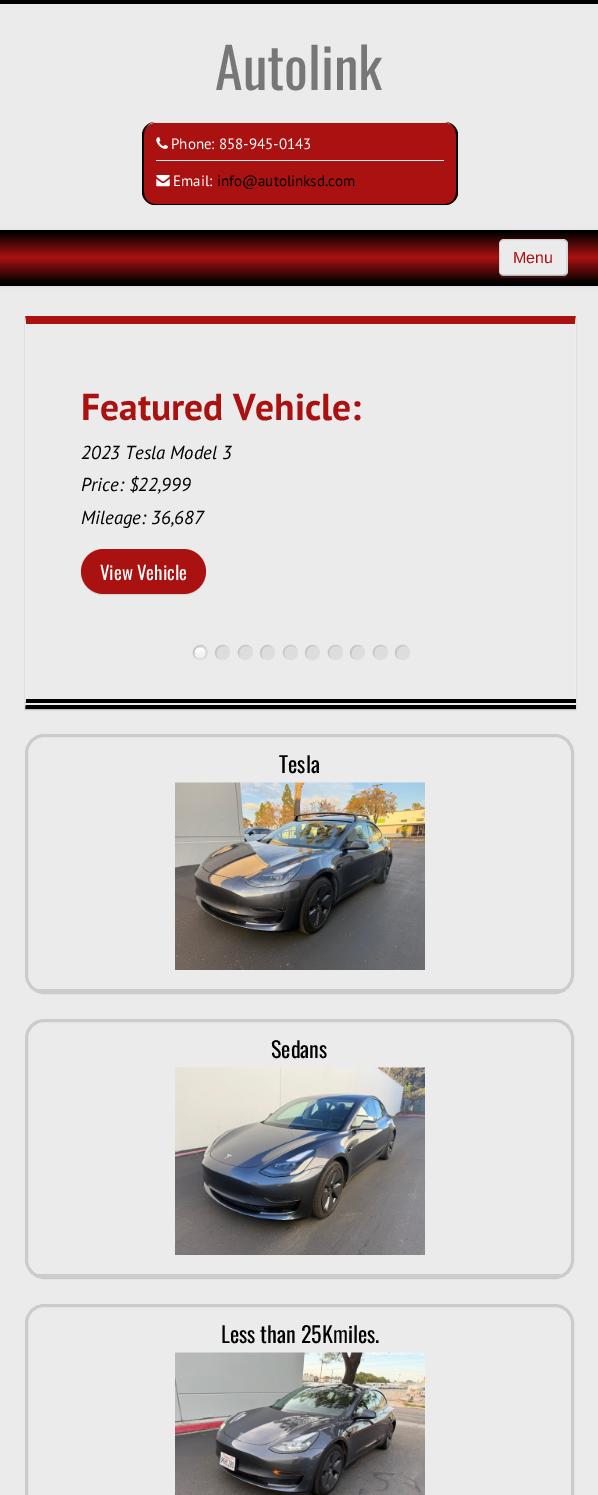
%!PS-Adobe-3.0
%%BoundingBox: 0 0 598 1495
%%LanguageLevel: 3
%%Pages: 1
%%EndComments
%%BeginProlog
/setink { dup -16 bitshift 255 div exch dup -8 bitshift 255 and 255 div exch 255 and 255 div setrgbcolor } def
/usefont { [ exch dup neg 0 0 3 -1 roll 0 0 ] selectfont } def
/setalpha { dup .setfillconstantalpha .setstrokeconstantalpha } def
/disc { newpath 0 360 arc closepath } def
/rrect { 5 dict begin { /r /h /w /y /x } { exch def } forall
  x r add y moveto x w add y 2 copy h add r arct x w add y h add x 1 index r arct
  x y h add x y r arct x y 2 copy exch w add exch r arct closepath end } def
/softshadow { 12 dict begin { /a /b /q /h /w /y /x } { exch def } forall gsave /was 0 def
  9 -2 -9 { dup b mul 4 div /e exch def 1 sub .425 mul 2.718 exch exp 1 add a .99 .min exch div /now exch def
    1 1 now sub 1 was sub div sub setalpha /was now def
    w h .min e 2 mul add 0 gt { x e sub y e sub w e 2 mul add h e 2 mul add
      q e add b .6 mul add w h .min 2 div e add .min 0 .max rrect fill } if } for grestore end } def
/drawimage { 5 dict begin { /h /w /y /x /name } { exch def } forall
  gsave x y translate w h scale
  w h 8 [w 0 0 h 0 0] name (r) file false 3 colorimage grestore end } def
%%EndProlog
%%BeginSetup
<< /PageSize [598 1495] /PageUsesTransparency true >> setpagedevice
%%EndSetup
%%Page: 1 1
0 .pushpdf14devicefilter
0 1495 translate 1 -1 scale
4 setmiterlimit
16#EBEBEB setink
0 0 598 1495 rectfill
16#000000 setink
0 0 598 4 rectfill
/Oswald-Regular 56 usefont
16#777777 setink
215 90 moveto (Autolink) show
16#DDDDDD setink
143 123 315 82 13 1 1 softshadow
16#AA1111 setink
143 123 315 82 13 rrect fill
16#000000 setink
155 122 moveto 445 122 lineto 452 122 458 128 458 135 curveto 458 192 lineto 458 199 452 205 445 205 curveto 155 205 lineto 148 205 142 199 142 192 curveto 142 135 lineto 142 128 148 122 155 122 curveto closepath 155 122 moveto 445 122 lineto 451 122 456 128 456 135 curveto 456 192 lineto 456 199 451 204 445 204 curveto 155 204 lineto 149 204 144 199 144 192 curveto 144 135 lineto 144 128 149 122 155 122 curveto closepath eofill
(img1.raw) 156 137 12 12 drawimage
/PTSans-Regular 15 usefont
16#FFFFFF setink
171 149 moveto (Phone: 858-945-0143) show
16#EEEEEE setink
156 160 288 1 rectfill
(img2.raw) 156 175 14 12 drawimage
16#FFFFFF setink
173 186 moveto (Email:) show
16#000000 setink
217 186 moveto (info@autolinksd.com) show
0 231 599 55 0 2.5 0.07 softshadow
gsave 0 233 moveto 598 233 lineto 598 283 lineto 0 283 lineto closepath clip newpath
<< /ShadingType 2 /ColorSpace /DeviceRGB /Coords [299 232 299 283] /Extend [true true] /Function << /FunctionType 3 /Domain [0 1] /Functions [<< /FunctionType 2 /Domain [0 1] /C0 [0 0 0] /C1 [0.667 0.067 0.067] /N 1 >> << /FunctionType 2 /Domain [0 1] /C0 [0.667 0.067 0.067] /C1 [0 0 0] /N 1 >>] /Bounds [0.5] /Encode [0 1 0 1] >> >> shfill grestore
0 230 598 3 rectfill
0 283 598 3 rectfill
0.07 setalpha
16#FFFFFF setink
499 273 moveto 499 276 501 278 504 278 curveto 563 278 lineto 566 278 568 276 568 273 curveto 568 245 lineto 567 243 lineto 567 272 lineto 566 278 556 276 553 276 curveto 504 276 lineto 502 276 500 275 499 273 curveto closepath fill
1 setalpha
16#EBEBEB setink
499 239 69 37 5 rrect fill
0.25 setalpha
16#000000 setink
1.2 setlinewidth
565.5 274.5 moveto 565 275 563.5 275.5 562.5 275.5 curveto 504 275.5 lineto 502.5 275.5 501.5 275 500.5 274.5 curveto stroke
0.1 setalpha
500.5 274.5 moveto 498.5 272.5 499.5 269 499.5 266.5 curveto 499.5 257.5 lineto 499.5 239 496 239.5 513.5 239.5 curveto 552.5 239.5 lineto 570.5 239.5 567 239 567 257.5 curveto 567 266.5 lineto 567 269 567.5 272.5 565.5 274.5 curveto stroke
/LiberationSans-Regular 16 usefont
1 setalpha
16#AA1111 setink
513 263 moveto (Menu) show
16#000000 setink
25 318 551 392 0 0.5 0.2 softshadow
16#EBEBEB setink
25 317 551 388 rectfill
16#AA1111 setink
25 316 moveto 576 316 lineto 575 324 lineto 26 324 lineto closepath fill
16#EEEEEE setink
576 316 moveto 576 709 lineto 575 699 lineto 575 324 lineto closepath fill
16#000000 setink
25 699 551 4 rectfill
25 705 551 4 rectfill
16#EEEEEE setink
25 709 moveto 25 316 lineto 26 324 lineto 26 699 lineto closepath fill
/PTSans-Bold 37.5 usefont
16#AA1111 setink
81 420 moveto (Featured Vehicle:) show
/PTSans-Italic 18.75 usefont
16#000000 setink
[
    [(2023 Tesla Model 3) 81 459]
    [(Price: $22,999) 81 491]
    [(Mileage: 36,687) 81 524]
] { aload pop moveto show } forall
81 550 125 45 22.5 0.5 0.1 softshadow
16#AA1111 setink
81 549 125 45 22.5 rrect fill
/Oswald-Regular 18.75 usefont
16#FFFFFF setink
100 580 moveto (View Vehicle) show
16#DDDDDD setink
200.5 652.5 7.5 disc fill
0.1 setalpha
16#000000 setink
201 646 moveto 204 646 206 647 207 649 curveto 201.5 638.5 186.5 650.5 195.5 658 curveto 192.5 654 194.5 646 201 646 curveto closepath fill
1 setalpha
gsave 200 653 5 disc clip newpath
<< /ShadingType 2 /ColorSpace /DeviceRGB /Coords [200 648 200 658] /Extend [true true] /Function << /FunctionType 3 /Domain [0 1] /Functions [<< /FunctionType 2 /Domain [0 1] /C0 [1 1 1] /C1 [0.965 0.965 0.965] /N 1 >> << /FunctionType 2 /Domain [0 1] /C0 [0.965 0.965 0.965] /C1 [0.929 0.929 0.929] /N 1 >>] /Bounds [0.47] /Encode [0 1 0 1] >> >> shfill grestore
16#DDDDDD setink
222.5 652.5 7.5 disc fill
0.1 setalpha
16#000000 setink
224 646 moveto 225.5 646 226.5 646.5 227.5 647 curveto 219.5 639.5 209.5 653.5 218.5 659 curveto 214.5 655 216.5 646 224 646 curveto closepath fill
1 setalpha
16#DDDDDD setink
245.5 652.5 7.5 disc fill
0.1 setalpha
16#000000 setink
246 646 moveto 249 646 251 647 252 649 curveto 246.5 638.5 231.5 650.5 240.5 658 curveto 237.5 654 239.5 646 246 646 curveto closepath fill
1 setalpha
16#DDDDDD setink
267.5 652.5 7.5 disc fill
0.1 setalpha
16#000000 setink
269 646 moveto 270.5 646 271.5 646.5 272.5 647 curveto 264.5 639.5 254.5 653.5 263.5 659 curveto 259.5 655 261.5 646 269 646 curveto closepath fill
1 setalpha
16#DDDDDD setink
290.5 652.5 7.5 disc fill
0.1 setalpha
16#000000 setink
291 646 moveto 294 646 296 647 297 649 curveto 291.5 638.5 276.5 650.5 285.5 658 curveto 282.5 654 284.5 646 291 646 curveto closepath fill
1 setalpha
16#DDDDDD setink
312.5 652.5 7.5 disc fill
0.1 setalpha
16#000000 setink
314 646 moveto 315.5 646 316.5 646.5 317.5 647 curveto 309.5 639.5 299.5 653.5 308.5 659 curveto 304.5 655 306.5 646 314 646 curveto closepath fill
1 setalpha
16#DDDDDD setink
335.5 652.5 7.5 disc fill
0.1 setalpha
16#000000 setink
336 646 moveto 339 646 341 647 342 649 curveto 336.5 638.5 321.5 650.5 330.5 658 curveto 327.5 654 329.5 646 336 646 curveto closepath fill
1 setalpha
16#DDDDDD setink
357.5 652.5 7.5 disc fill
0.1 setalpha
16#000000 setink
359 646 moveto 360.5 646 361.5 646.5 362.5 647 curveto 354.5 639.5 344.5 653.5 353.5 659 curveto 349.5 655 351.5 646 359 646 curveto closepath fill
1 setalpha
16#DDDDDD setink
380.5 652.5 7.5 disc fill
0.1 setalpha
16#000000 setink
381 646 moveto 384 646 386 647 387 649 curveto 381.5 638.5 366.5 650.5 375.5 658 curveto 372.5 654 374.5 646 381 646 curveto closepath fill
1 setalpha
16#DDDDDD setink
402.5 652.5 7.5 disc fill
0.1 setalpha
16#000000 setink
404 646 moveto 405.5 646 406.5 646.5 407.5 647 curveto 399.5 639.5 389.5 653.5 398.5 659 curveto 394.5 655 396.5 646 404 646 curveto closepath fill
1 setalpha
16#CCCCCC setink
3 setlinewidth
26.5 735.5 546 257 17.5 rrect stroke
35 989 530 3 rectfill
/Oswald-Regular 22 usefont
16#000000 setink
279 773 moveto (Tesla) show
(img3.raw) 175 782 250 188 drawimage
16#CCCCCC setink
26.5 1020.5 546 257 17.5 rrect stroke
35 1274 530 3 rectfill
16#000000 setink
271 1058 moveto (Sedans) show
(img4.raw) 175 1067 250 188 drawimage
16#CCCCCC setink
26.5 1305.5 546 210 17.5 rrect stroke
16#000000 setink
221 1343 moveto (Less than 25Kmiles.) show
(img5.raw) 175 1352 250 143 drawimage
.poppdf14devicefilter showpage
%%EOF
